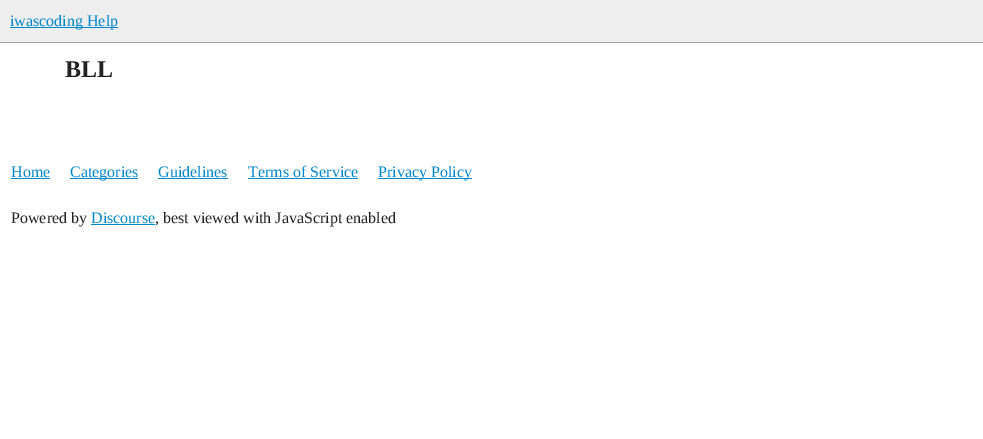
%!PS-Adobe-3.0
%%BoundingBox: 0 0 983 439
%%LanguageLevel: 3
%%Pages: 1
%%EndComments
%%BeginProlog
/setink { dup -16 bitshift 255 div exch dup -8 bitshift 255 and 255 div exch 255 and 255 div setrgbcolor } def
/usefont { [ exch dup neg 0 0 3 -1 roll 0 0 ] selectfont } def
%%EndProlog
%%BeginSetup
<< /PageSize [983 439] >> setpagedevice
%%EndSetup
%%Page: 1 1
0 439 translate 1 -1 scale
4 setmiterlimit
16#FFFFFF setink
0 0 983 439 rectfill
[
    [0 0 983 42 16#EEEEEE]
    [0 42 983 1 16#A4A4A4]
    [10 27 108 1 16#0088CC]
] { aload pop setink rectfill } forall
/LiberationSerif-Regular 16 usefont
10 26 moveto (iwascoding Help) show
/LiberationSerif-Bold 24 usefont
16#222222 setink
65 77 moveto (BLL) show
/LiberationSerif-Regular 16 usefont
16#0088CC setink
11 177 moveto (Home) show
11 178 39 1 rectfill
70 178 68 1 rectfill
70 177 moveto (Categories) show
158 177 moveto (Guidelines) show
158 178 70 1 rectfill
248 177 moveto (Terms of Service) show
248 178 110 1 rectfill
378 178 94 1 rectfill
378 177 moveto (Privacy Policy) show
16#222222 setink
11 223 moveto (Powered by) show
16#0088CC setink
91 223 moveto (Discourse) show
91 224 64 1 rectfill
16#222222 setink
155 223 moveto (, best viewed with JavaScript enabled) show
showpage
%%EOF
